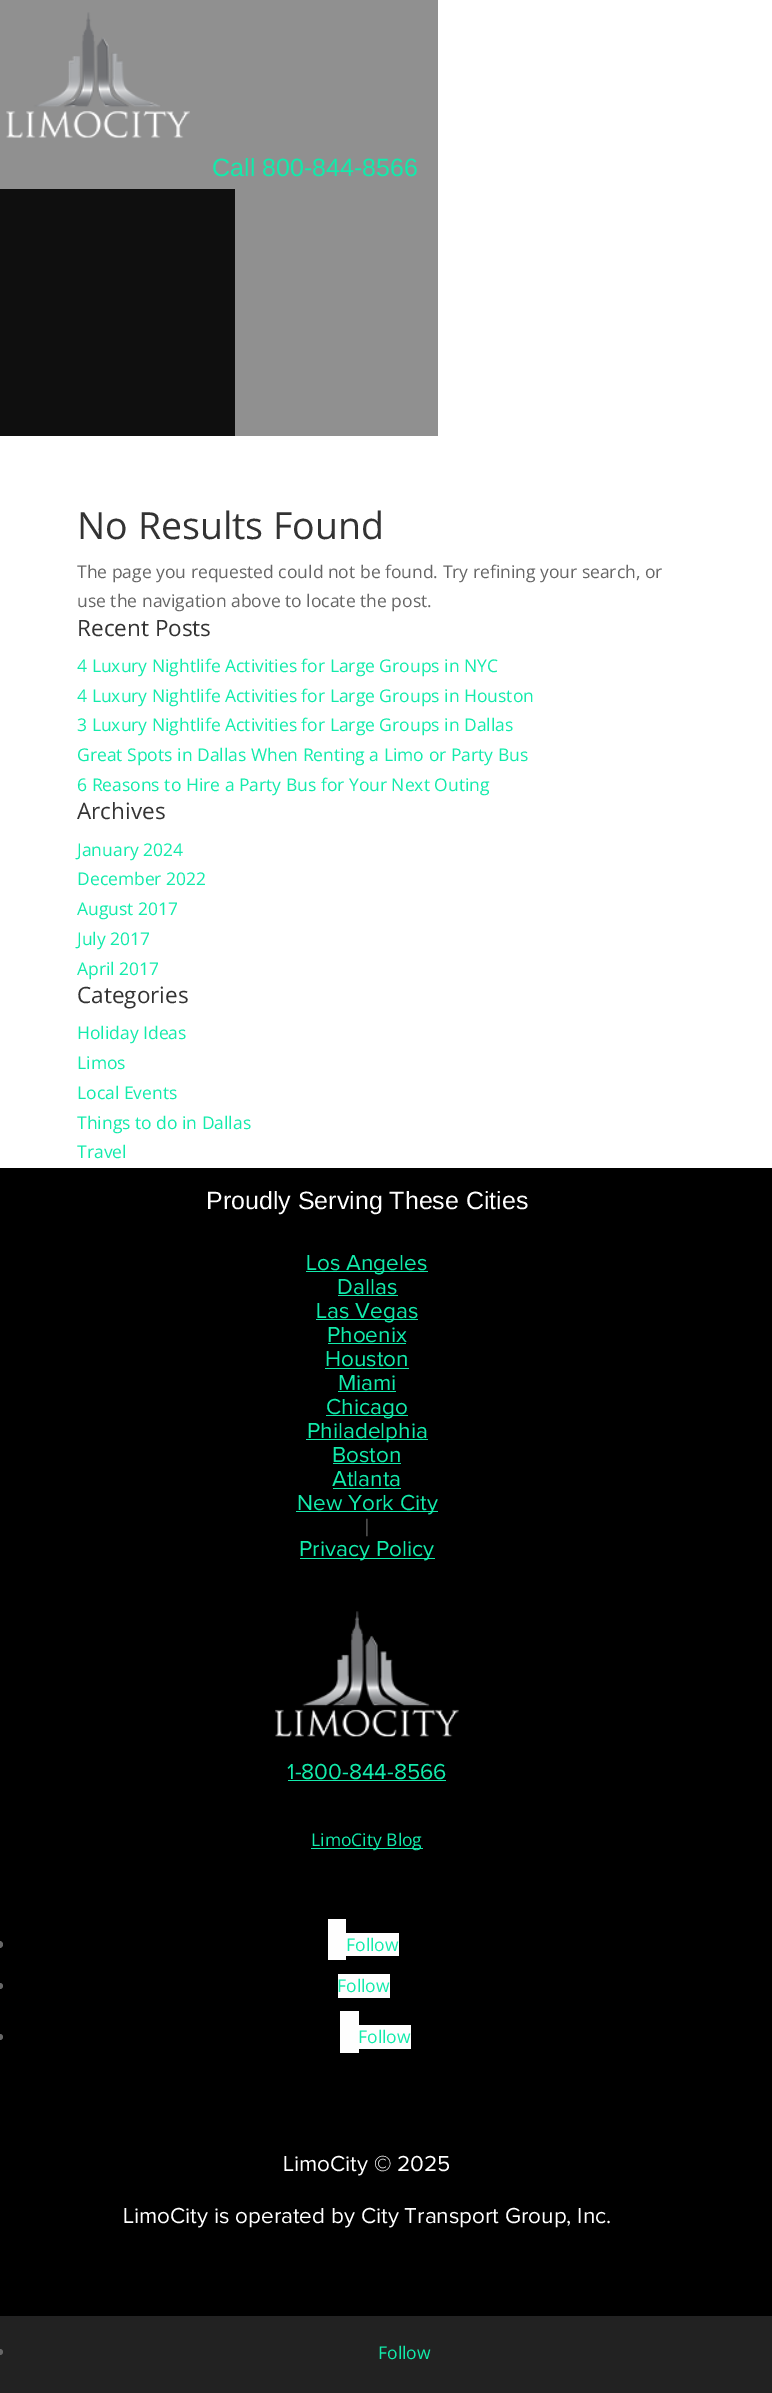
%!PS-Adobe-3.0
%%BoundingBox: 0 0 772 2393
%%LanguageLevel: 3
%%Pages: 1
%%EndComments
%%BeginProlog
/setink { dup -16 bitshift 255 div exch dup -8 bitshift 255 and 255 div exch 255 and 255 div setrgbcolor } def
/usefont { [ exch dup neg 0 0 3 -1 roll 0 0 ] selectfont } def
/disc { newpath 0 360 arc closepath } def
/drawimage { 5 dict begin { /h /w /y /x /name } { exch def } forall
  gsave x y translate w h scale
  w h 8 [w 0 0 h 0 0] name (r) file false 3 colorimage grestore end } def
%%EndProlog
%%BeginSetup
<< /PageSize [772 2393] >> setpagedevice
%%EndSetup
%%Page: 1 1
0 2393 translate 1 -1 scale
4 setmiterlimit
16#FFFFFF setink
0 0 772 2393 rectfill
16#909090 setink
0 0 438 436 rectfill
(img1.raw) 6 12 184 126 drawimage
/LiberationSans-Regular 25 usefont
16#12EBAB setink
212 176 moveto (Call 800-844-8566) show
16#0F0F0F setink
0 189 235 247 rectfill
/OpenSans-Regular 37.5 usefont
16#333333 setink
77 539 moveto (No Results Found) show
/OpenSans-Regular 17.5 usefont
16#666666 setink
77 578 moveto (The page you requested could not be found. Try refining your search, or) show
77 607 moveto (use the navigation above to locate the post.) show
/OpenSans-Regular 22.5 usefont
16#333333 setink
77 636 moveto (Recent Posts) show
/OpenSans-Regular 17.5 usefont
16#12EBAB setink
[
    [(4 Luxury Nightlife Activities for Large Groups in NYC) 77 672]
    [(4 Luxury Nightlife Activities for Large Groups in Houston) 77 702]
    [(3 Luxury Nightlife Activities for Large Groups in Dallas) 77 731]
    [(Great Spots in Dallas When Renting a Limo or Party Bus) 77 761]
    [(6 Reasons to Hire a Party Bus for Your Next Outing) 77 791]
] { aload pop moveto show } forall
/OpenSans-Regular 22.5 usefont
16#333333 setink
77 819 moveto (Archives) show
/OpenSans-Regular 17.5 usefont
16#12EBAB setink
[
    [(January 2024) 77 856]
    [(December 2022) 77 885]
    [(August 2017) 77 915]
    [(July 2017) 77 945]
    [(April 2017) 77 975]
] { aload pop moveto show } forall
/OpenSans-Regular 22.5 usefont
16#333333 setink
77 1003 moveto (Categories) show
/OpenSans-Regular 17.5 usefont
16#12EBAB setink
[
    [(Holiday Ideas) 77 1039]
    [(Limos) 77 1069]
    [(Local Events) 77 1099]
    [(Things to do in Dallas) 77 1129]
    [(Travel) 77 1158]
] { aload pop moveto show } forall
16#000000 setink
0 1168 772 1148 rectfill
/LiberationSans-Regular 25 usefont
16#FFFFFF setink
206 1209 moveto (Proudly Serving These Cities) show
16#12EBAB setink
306 1271 122 1 rectfill
/ProximaNova-Regular 22.5 usefont
306 1270 moveto (Los Angeles) show
337 1294 moveto (Dallas) show
338 1295 60 1 rectfill
316 1319 102 1 rectfill
316 1318 moveto (Las Vegas) show
327 1342 moveto (Phoenix) show
328 1343 78 1 rectfill
325 1366 moveto (Houston) show
325 1368 84 1 rectfill
338 1390 moveto (Miami) show
338 1391 58 1 rectfill
326 1415 82 1 rectfill
326 1414 moveto (Chicago) show
306 1439 122 1 rectfill
307 1438 moveto (Philadelphia) show
332 1462 moveto (Boston) show
333 1463 68 1 rectfill
332 1486 moveto (Atlanta) show
333 1488 68 1 rectfill
296 1511 142 1 rectfill
297 1510 moveto (New York City) show
/OpenSans-Regular 17.5 usefont
16#666666 setink
362 1532 moveto (|) show
16#12EBAB setink
300 1558 135 1 rectfill
/ProximaNova-Regular 22.5 usefont
299 1556 moveto (Privacy Policy) show
(img2.raw) 275 1611 184 126 drawimage
287 1779 moveto (1-800-844-8566) show
288 1780 158 1 rectfill
311 1848 112 1 rectfill
/OpenSans-Regular 17.5 usefont
311 1846 moveto (LimoCity Blog) show
16#666666 setink
-0.5 1944.5 3.5 disc fill
16#FEFEFE setink
346 1933 53 23 rectfill
16#12EBAB setink
346 1951 moveto (Follow) show
16#FEFEFE setink
328 1919 18 41 rectfill
16#666666 setink
0 1986 3 disc fill
16#FEFEFE setink
338 1974 52 24 rectfill
16#12EBAB setink
337 1992 moveto (Follow) show
16#666666 setink
0 2037 3 disc fill
16#FEFEFE setink
359 2025 52 24 rectfill
16#12EBAB setink
358 2043 moveto (Follow) show
16#FEFEFE setink
340 2011 19 42 rectfill
/ProximaNova-Regular 22.5 usefont
16#FFFFFF setink
283 2171 moveto (LimoCity © 2025) show
123 2223 moveto (LimoCity is operated by City Transport Group, Inc.) show
16#222222 setink
0 2316 772 77 rectfill
16#666666 setink
0 2352 3 disc fill
/OpenSans-Regular 17.5 usefont
16#12EBAB setink
378 2359 moveto (Follow) show
showpage
%%EOF
